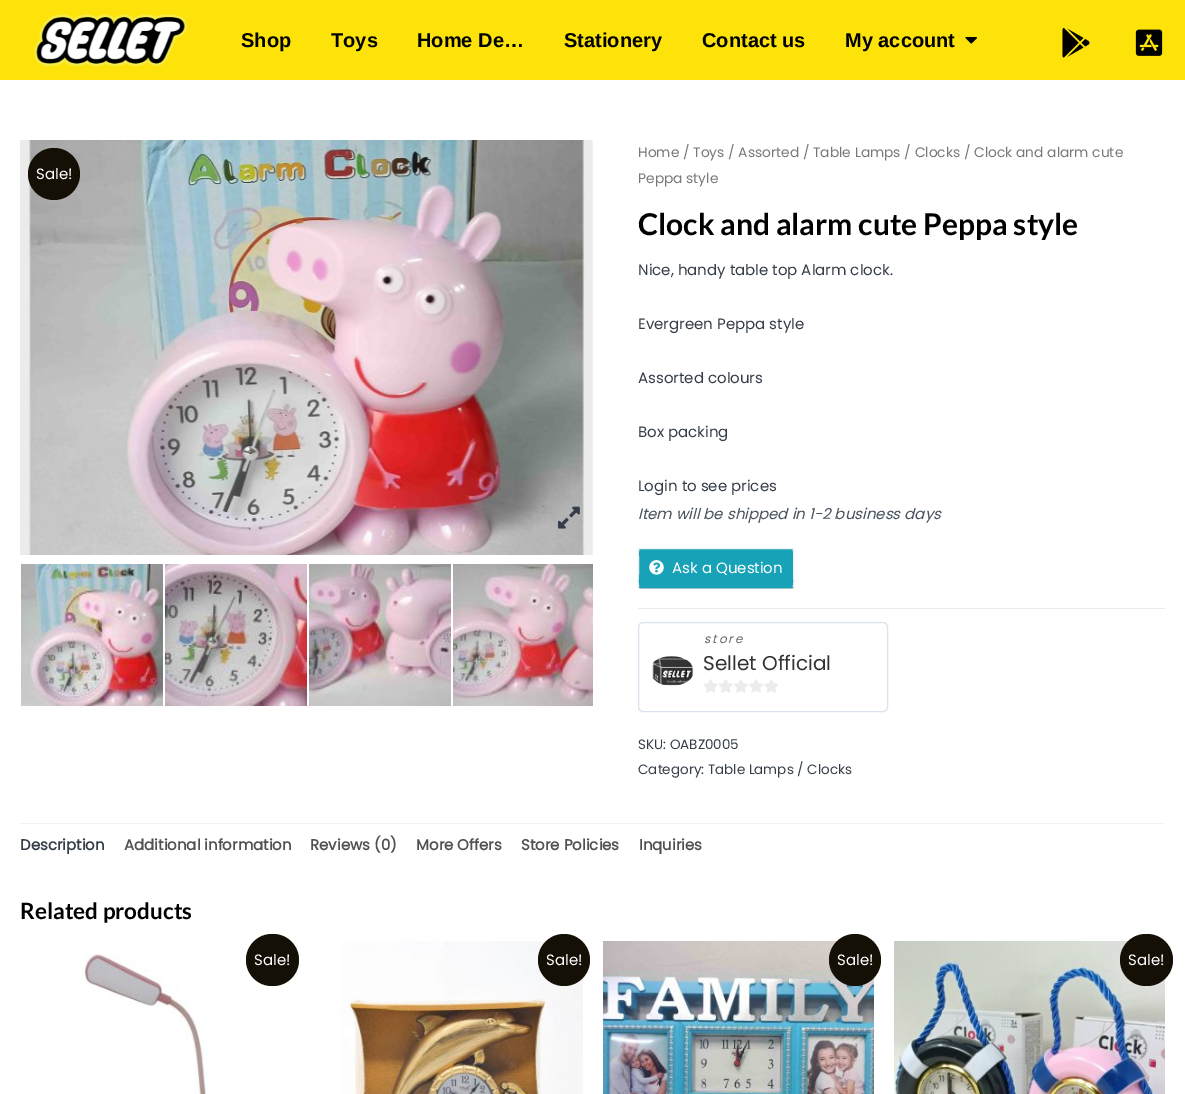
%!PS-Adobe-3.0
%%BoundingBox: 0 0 1185 1094
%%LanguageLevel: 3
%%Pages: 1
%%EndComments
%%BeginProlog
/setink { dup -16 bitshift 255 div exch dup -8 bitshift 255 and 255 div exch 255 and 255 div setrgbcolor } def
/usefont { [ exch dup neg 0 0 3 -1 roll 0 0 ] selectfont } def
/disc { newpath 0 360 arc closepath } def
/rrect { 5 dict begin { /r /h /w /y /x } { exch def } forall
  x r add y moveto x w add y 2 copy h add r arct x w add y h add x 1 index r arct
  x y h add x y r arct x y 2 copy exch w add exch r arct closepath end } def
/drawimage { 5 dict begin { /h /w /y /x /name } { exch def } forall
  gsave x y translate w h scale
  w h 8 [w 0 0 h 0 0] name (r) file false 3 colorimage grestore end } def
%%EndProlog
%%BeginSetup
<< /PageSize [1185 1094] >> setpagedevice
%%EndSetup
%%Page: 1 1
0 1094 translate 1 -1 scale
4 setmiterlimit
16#FFFFFF setink
0 0 1185 1094 rectfill
16#FDE30A setink
0 0 1185 80 rectfill
(img1.raw) 34 14 154 53 drawimage
/LiberationSans-Bold 20 usefont
16#000000 setink
[
    [(Shop) 241 47]
    [(Toys) 331 47]
    [(Home De…) 417 47]
    [(Stationery) 564 47]
    [(Contact us) 702 47]
    [(My account) 845 47]
] { aload pop moveto show } forall
(img2.raw) 965 37 12 7 drawimage
(img3.raw) 1062 27 28 31 drawimage
(img4.raw) 1135 29 28 27 drawimage
(img5.raw) 20 140 573 415 drawimage
(img6.raw) 558 506 22 23 drawimage
(img7.raw) 21 564 142 142 drawimage
(img8.raw) 165 564 142 142 drawimage
(img9.raw) 309 564 142 142 drawimage
(img10.raw) 453 564 140 142 drawimage
/Poppins-Regular 13.8 usefont
16#777777 setink
638 157 moveto (Home / Toys / Assorted / Table Lamps / Clocks / Clock and alarm cute) show
638 183 moveto (Peppa style) show
/Lato-Bold 30 usefont
16#000000 setink
638 235 moveto (Clock and alarm cute Peppa style) show
/Poppins-Regular 15 usefont
16#343D48 setink
[
    [(Nice, handy table top Alarm clock.) 638 275]
    [(Evergreen Peppa style) 638 329]
    [(Assorted colours) 638 383]
    [(Box packing) 638 437]
    [(Login to see prices) 638 491]
] { aload pop moveto show } forall
/Poppins-Italic 15 usefont
16#47525D setink
638 519 moveto (Item will be shipped in 1-2 business days) show
16#CCCCCC setink
638 585 moveto 638 587 639 589 641 589 curveto 792 589 lineto 794 589 794 587 794 585 curveto 793 587 lineto 792 588 lineto 641 588 lineto 639 588 638 587 638 585 curveto closepath fill
16#17A2B8 setink
638 548 156 40 3 rrect fill
793 587 moveto 791 587.5 lineto 641 587.5 lineto 639 587 lineto stroke
16#F0F0F0 setink
639 587 moveto 637.5 585 638.5 576 638.5 573.5 curveto 638.5 556.5 lineto 638.5 555 637 548.5 641 548.5 curveto 791 548.5 lineto 795 548.5 793.5 555 793.5 556.5 curveto 793.5 573.5 lineto 793.5 576 794.5 585 793 587 curveto stroke
(img11.raw) 649 560 15 15 drawimage
/Poppins-Regular 15 usefont
16#FFFFFF setink
672 573 moveto (Ask a Question) show
16#EBEBEB setink
638 608 527 1 rectfill
16#DAE2ED setink
638.5 622.5 249 89 4.5 rrect stroke
/Poppins-Italic 12 usefont
16#666666 setink
704 643 moveto 2 0 (store) ashow
(img12.raw) 652 656 42 30 drawimage
/Poppins-Regular 20 usefont
16#333333 setink
703 670 moveto (Sellet Official) show
(img13.raw) 703 679 76 14 drawimage
/Poppins-Regular 13.5 usefont
16#343D48 setink
638 749 moveto (SKU: OABZ0005) show
638 774 moveto (Category: Table Lamps / Clocks) show
16#141006 setink
54 174 26 disc fill
/Poppins-Regular 15 usefont
16#FFFFFF setink
36 179 moveto (Sale!) show
16#F2F2F2 setink
20 823 1145 1 rectfill
/Poppins-Bold 15 usefont
16#343D48 setink
20 850 moveto (Description) show
16#515151 setink
[
    [(Additional information) 124 850]
    [(Reviews \(0\)) 310 850]
    [(More Offers) 416 850]
    [(Store Policies) 521 850]
    [(Inquiries) 639 850]
] { aload pop moveto show } forall
/Lato-Bold 22.5 usefont
16#000000 setink
20 919 moveto (Related products) show
(img14.raw) 78 954 130 140 drawimage
16#141006 setink
246 934 53 52 26 rrect fill
/Poppins-Regular 15 usefont
16#FFFFFF setink
254 965 moveto (Sale!) show
(img15.raw) 340 941 243 153 drawimage
16#141006 setink
564 960 26 disc fill
16#FFFFFF setink
546 965 moveto (Sale!) show
(img16.raw) 603 941 271 153 drawimage
16#141006 setink
855 960 26 disc fill
16#FFFFFF setink
837 965 moveto (Sale!) show
(img17.raw) 894 941 271 153 drawimage
16#141006 setink
1120 934 53 52 26 rrect fill
16#FFFFFF setink
1128 965 moveto (Sale!) show
showpage
%%EOF
